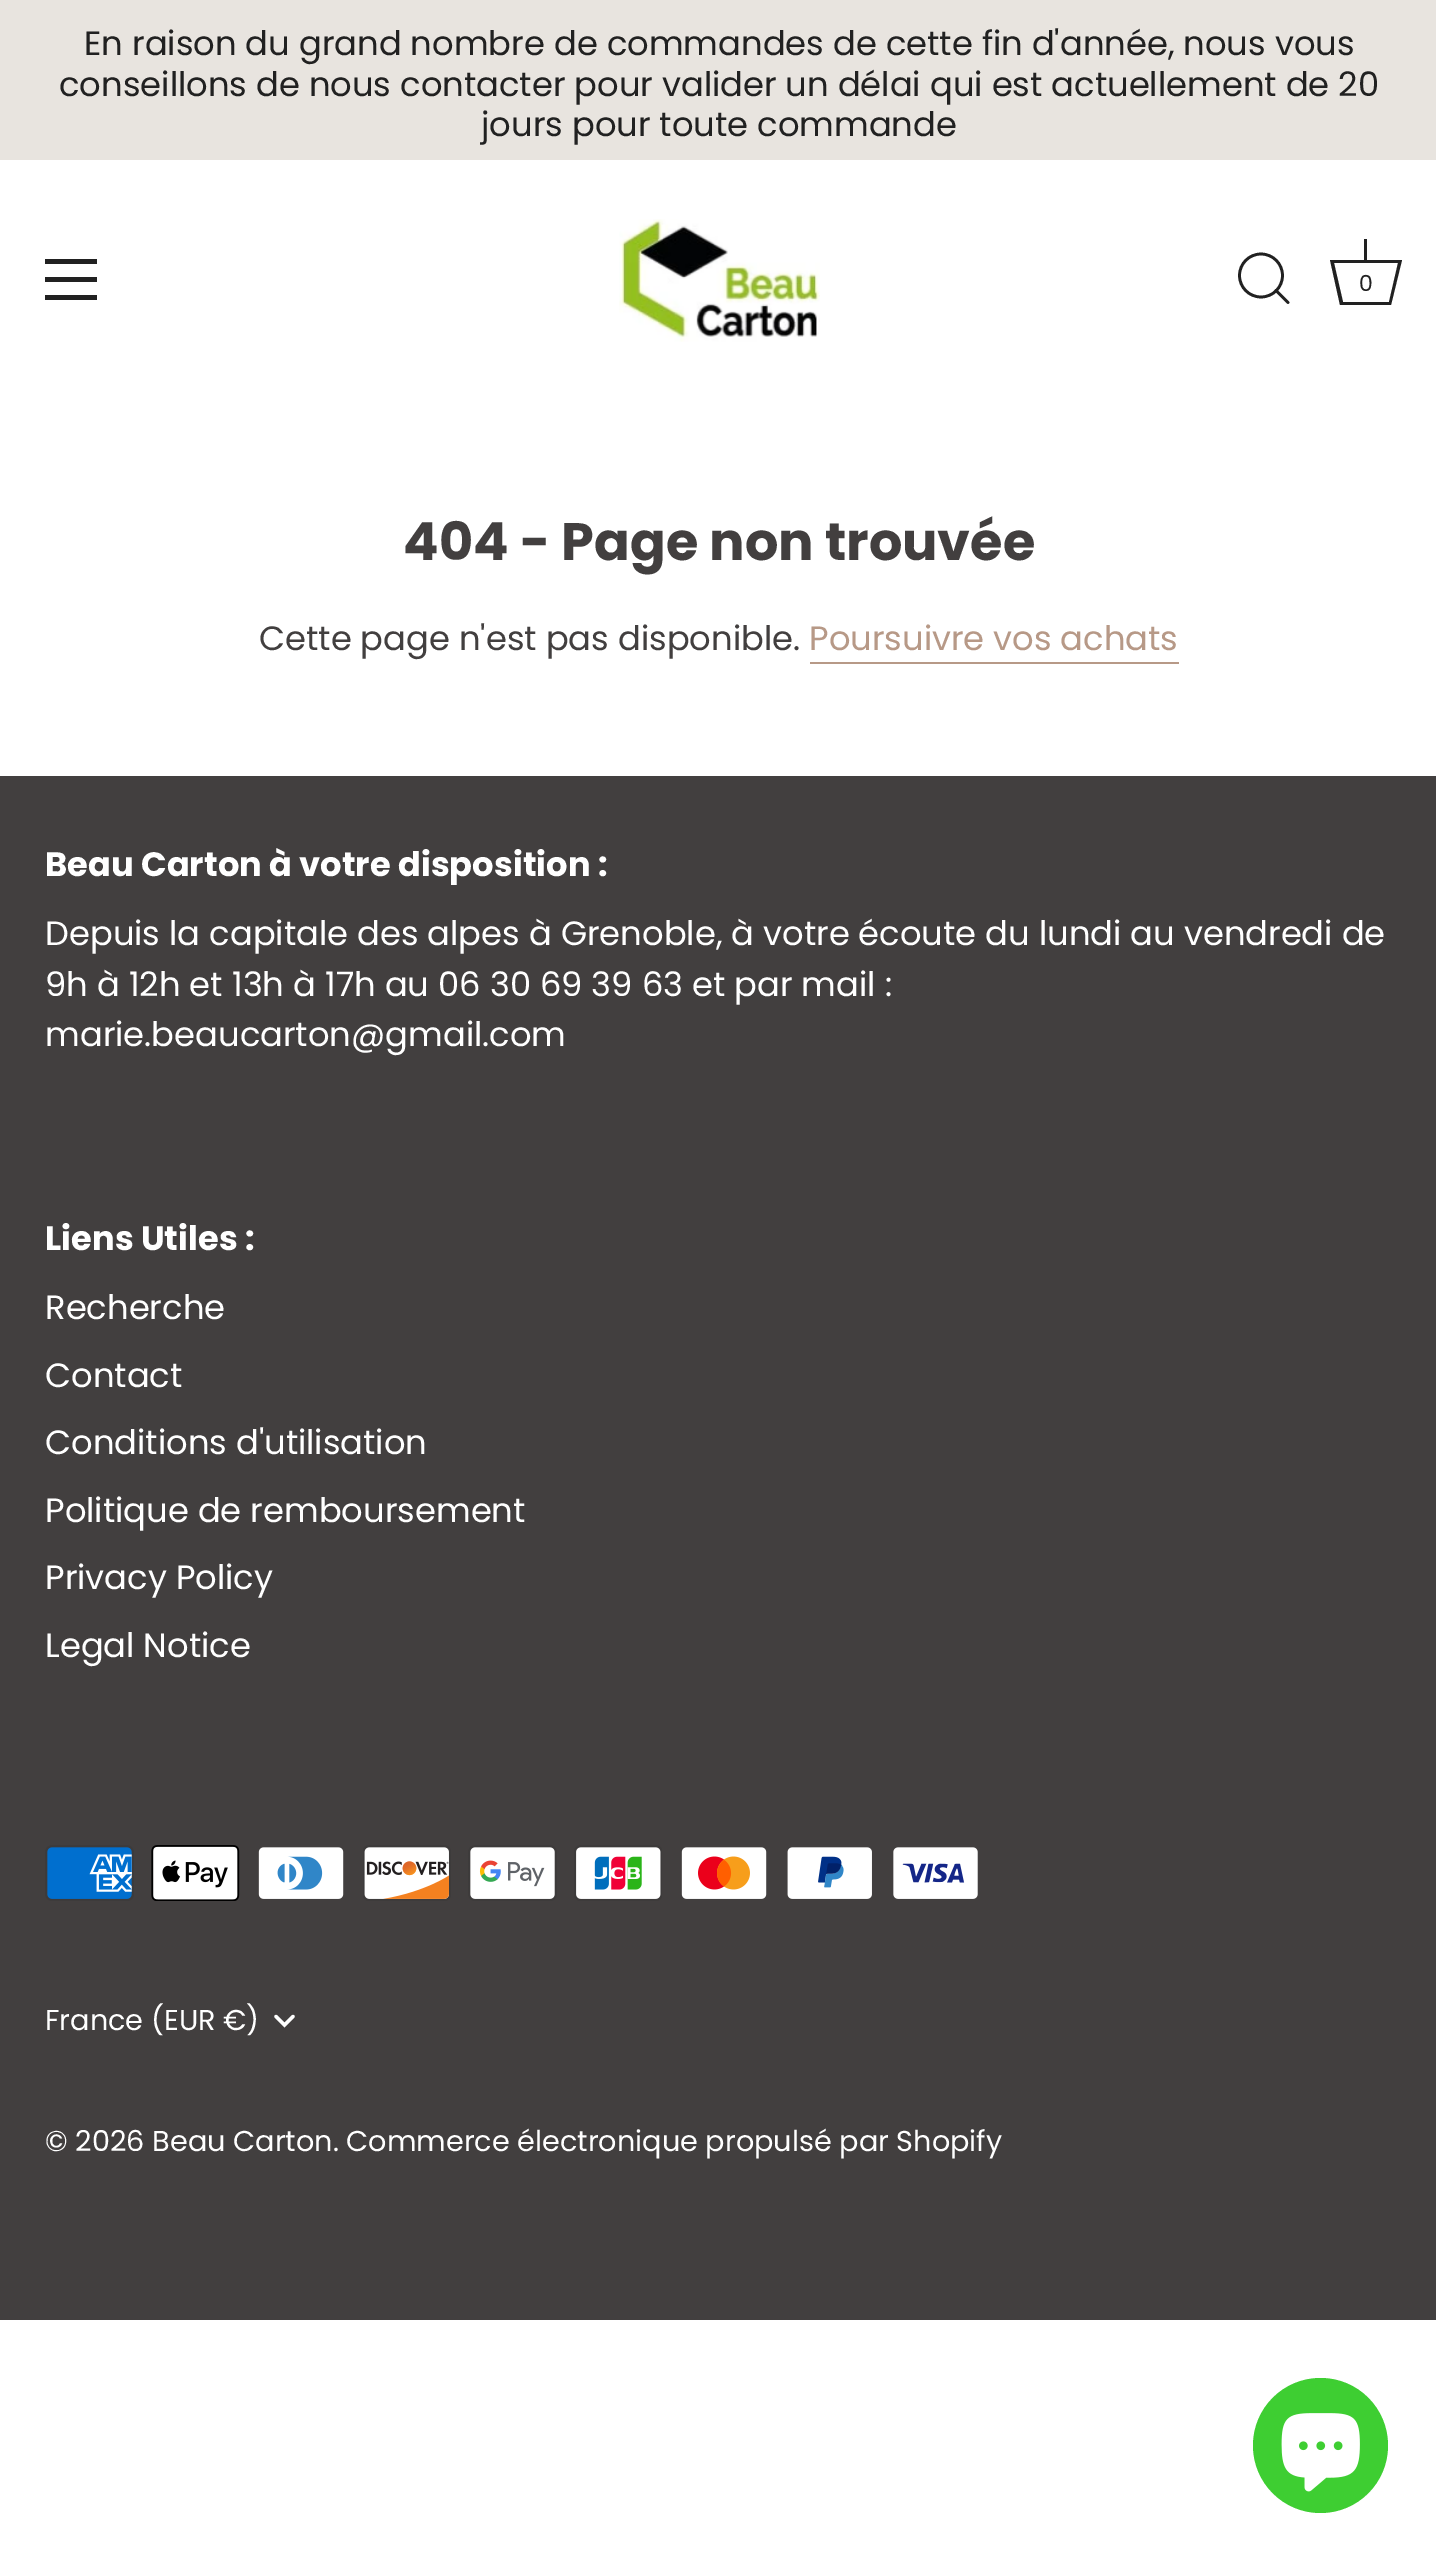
%!PS-Adobe-3.0
%%BoundingBox: 0 0 1436 2560
%%LanguageLevel: 3
%%Pages: 1
%%EndComments
%%BeginProlog
/setink { dup -16 bitshift 255 div exch dup -8 bitshift 255 and 255 div exch 255 and 255 div setrgbcolor } def
/usefont { [ exch dup neg 0 0 3 -1 roll 0 0 ] selectfont } def
/disc { newpath 0 360 arc closepath } def
/drawimage { 5 dict begin { /h /w /y /x /name } { exch def } forall
  gsave x y translate w h scale
  w h 8 [w 0 0 h 0 0] name (r) file false 3 colorimage grestore end } def
%%EndProlog
%%BeginSetup
<< /PageSize [1436 2560] >> setpagedevice
%%EndSetup
%%Page: 1 1
0 2560 translate 1 -1 scale
4 setmiterlimit
16#FFFFFF setink
0 0 1436 2560 rectfill
16#E8E4DF setink
0 0 1436 160 rectfill
/Poppins-Regular 33.75 usefont
16#212121 setink
[
    [(En raison du grand nombre de commandes de cette fin d'année, nous vous) 84 55]
    [(conseillons de nous contacter pour valider un délai qui est actuellement de 20) 59 96]
    [(jours pour toute commande) 481 136]
] { aload pop moveto show } forall
[
    [45 259 52 5 16#212121]
    [45 277 52 5 16#212121]
    [45 295 52 5 16#212121]
] { aload pop setink rectfill } forall
(img1.raw) 619 219 201 123 drawimage
2.7 setlinewidth
1261 275.5 21.5 disc stroke
1 setlinecap
1 setlinejoin
1288 302.5 moveto 1276 290.5 lineto stroke
1364 239 3 21 rectfill
1398 263 moveto 1389 302 lineto 1343 302 lineto 1334 263 lineto 1398 263 lineto 1402 260 moveto 1330 260 lineto 1340 305 lineto 1391 305 lineto closepath fill
/Poppins-Regular 22 usefont
1359 291 moveto (0) show
/Poppins-Bold 52.6 usefont
16#423F3F setink
403 560 moveto (404 - Page non trouvée) show
/Poppins-Regular 33.75 usefont
259 650 moveto (Cette page n'est pas disponible.) show
16#B79987 setink
809 650 moveto (Poursuivre vos achats) show
810 662 369 2 rectfill
16#423F3F setink
0 776 1436 1544 rectfill
/Poppins-Bold 33.75 usefont
16#FFFFFF setink
45 876 moveto (Beau Carton à votre disposition :) show
/Poppins-Regular 33.75 usefont
[
    [(Depuis la capitale des alpes à Grenoble, à votre écoute du lundi au vendredi de) 45 945]
    [(9h à 12h et 13h à 17h au 06 30 69 39 63 et par mail :) 45 996]
    [(marie.beaucarton@gmail.com) 45 1046]
] { aload pop moveto show } forall
/Poppins-Bold 33.75 usefont
45 1250 moveto (Liens Utiles :) show
/Poppins-Regular 33.75 usefont
[
    [(Recherche) 45 1319]
    [(Contact) 45 1387]
    [(Conditions d'utilisation) 45 1454]
    [(Politique de remboursement) 45 1522]
    [(Privacy Policy) 45 1589]
    [(Legal Notice) 45 1657]
] { aload pop moveto show } forall
(img2.raw) 45 1845 89 56 drawimage
(img3.raw) 151 1845 89 56 drawimage
(img4.raw) 258 1847 86 52 drawimage
(img5.raw) 363 1845 88 56 drawimage
(img6.raw) 468 1845 89 56 drawimage
(img7.raw) 574 1845 88 56 drawimage
(img8.raw) 681 1847 86 52 drawimage
(img9.raw) 787 1847 85 52 drawimage
(img10.raw) 893 1847 85 52 drawimage
/Poppins-Regular 28.7 usefont
45 2030 moveto (France \(EUR €\)) show
3.2 setlinewidth
0 setlinejoin
276 2016.5 moveto 284.5 2025 lineto 293 2016.5 lineto stroke
45 2151 moveto (© 2026 Beau Carton. Commerce électronique propulsé par Shopify) show
16#3ECE32 setink
1320.5 2445.5 67.5 disc fill
(img11.raw) 1281 2413 79 79 drawimage
showpage
%%EOF
